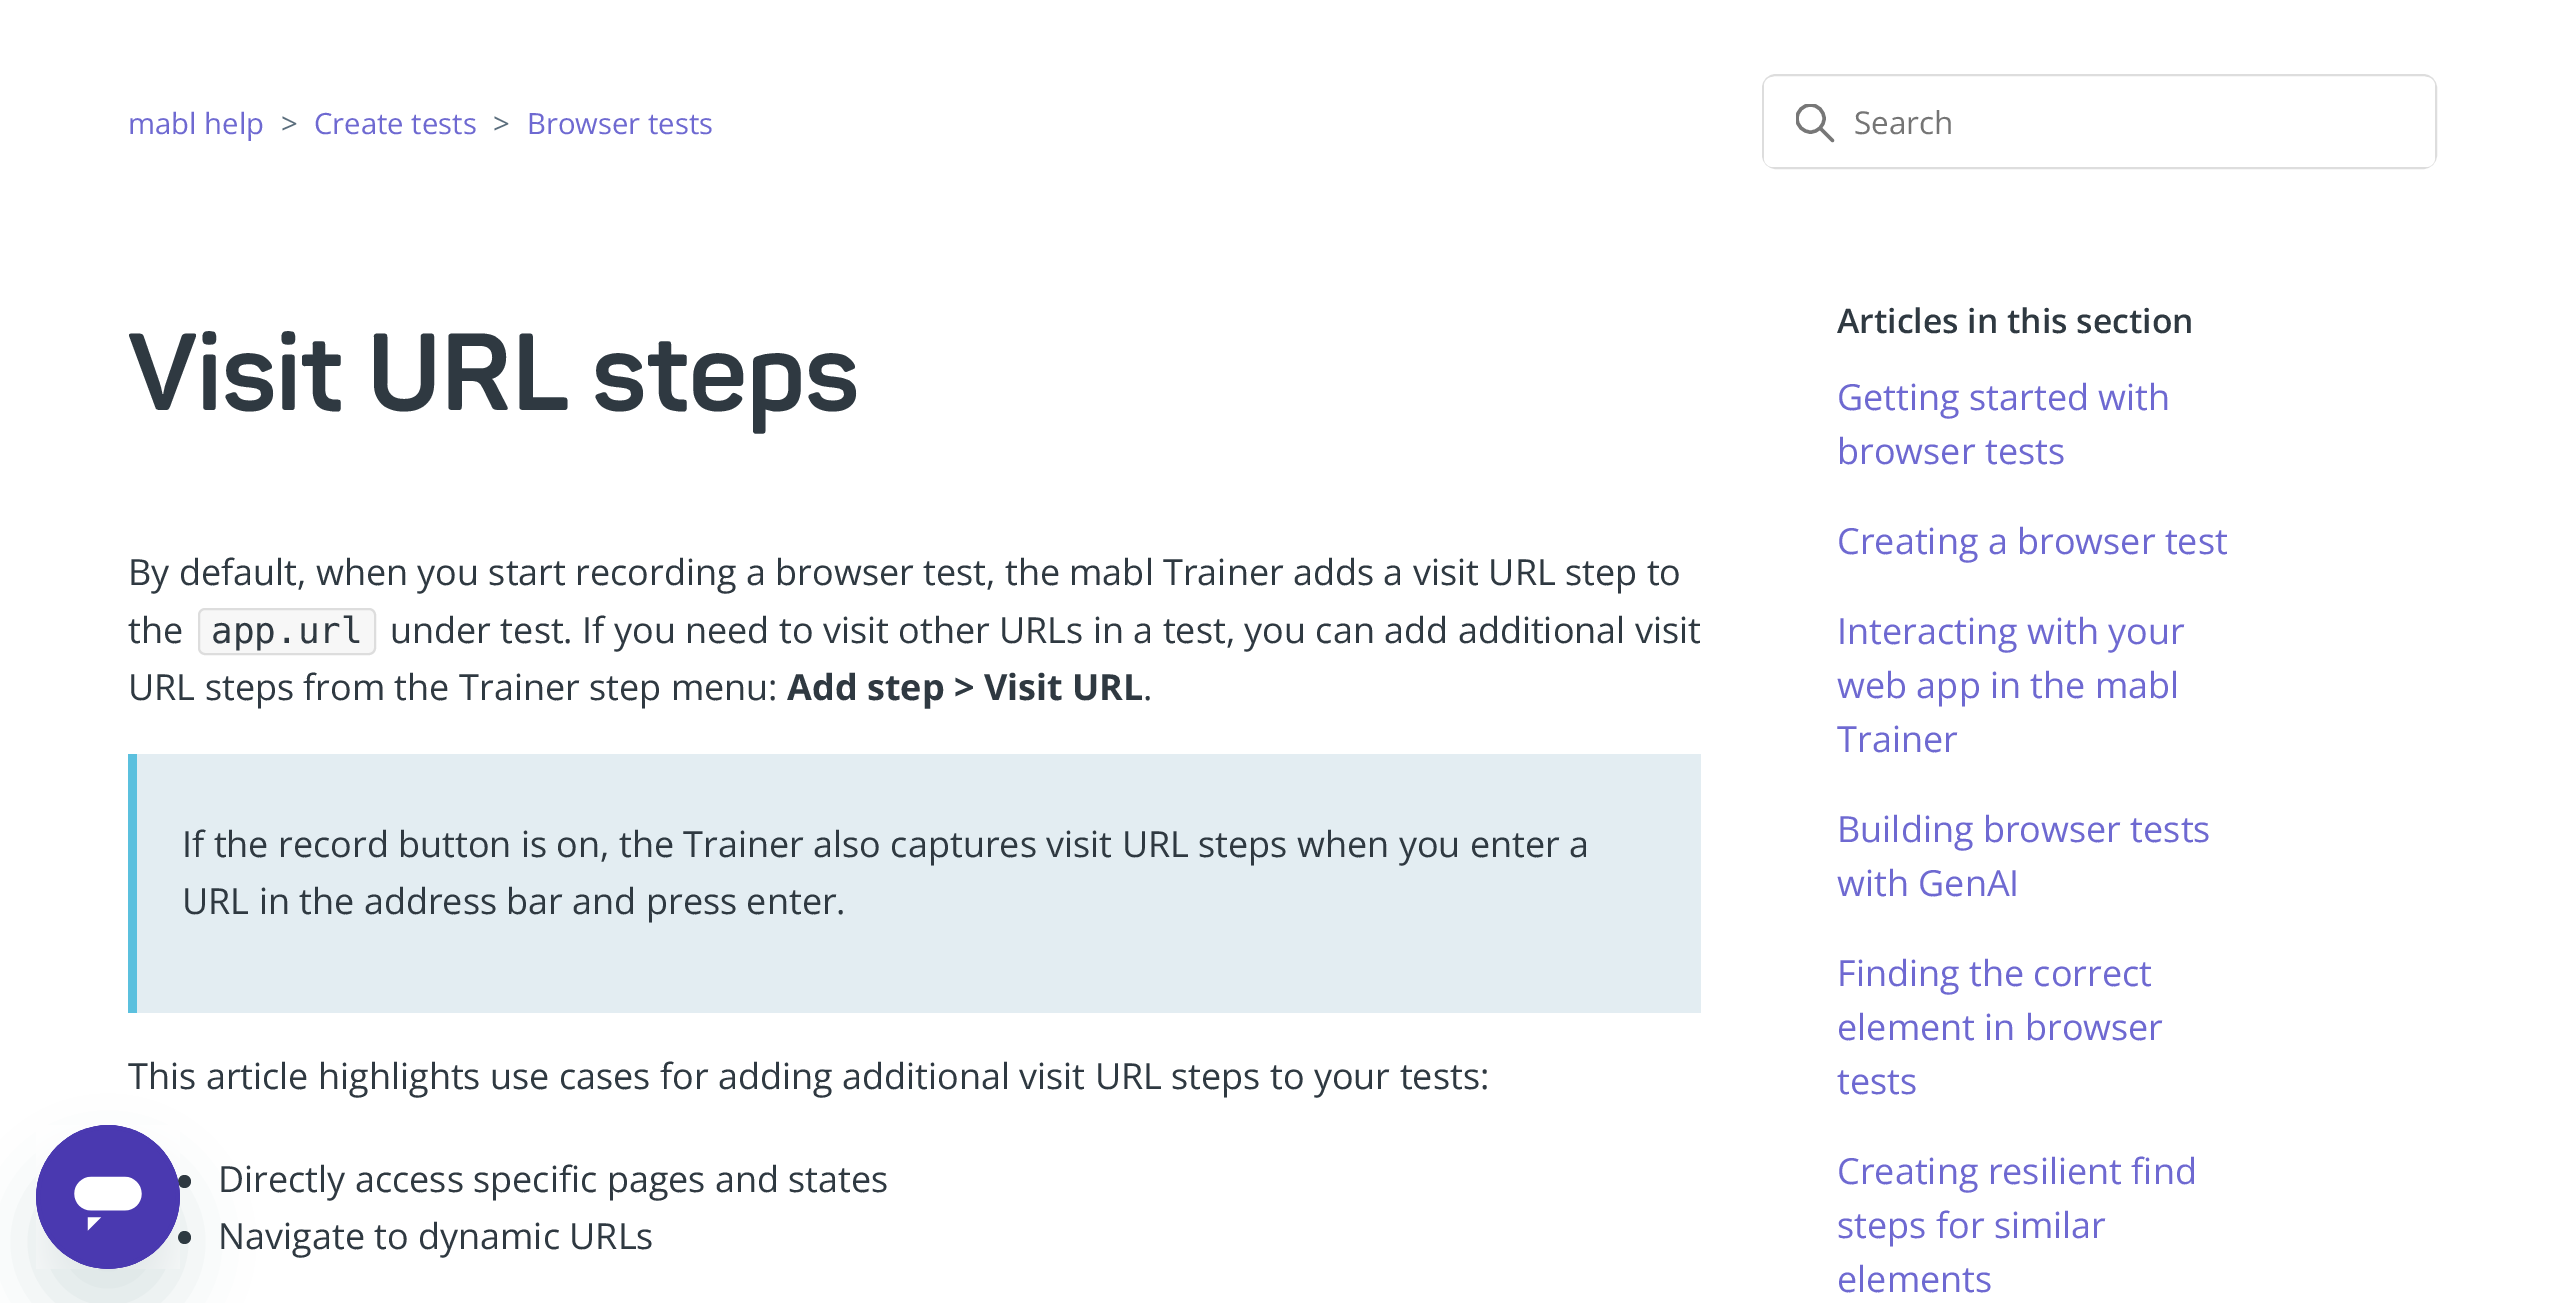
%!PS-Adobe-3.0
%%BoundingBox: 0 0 2565 1303
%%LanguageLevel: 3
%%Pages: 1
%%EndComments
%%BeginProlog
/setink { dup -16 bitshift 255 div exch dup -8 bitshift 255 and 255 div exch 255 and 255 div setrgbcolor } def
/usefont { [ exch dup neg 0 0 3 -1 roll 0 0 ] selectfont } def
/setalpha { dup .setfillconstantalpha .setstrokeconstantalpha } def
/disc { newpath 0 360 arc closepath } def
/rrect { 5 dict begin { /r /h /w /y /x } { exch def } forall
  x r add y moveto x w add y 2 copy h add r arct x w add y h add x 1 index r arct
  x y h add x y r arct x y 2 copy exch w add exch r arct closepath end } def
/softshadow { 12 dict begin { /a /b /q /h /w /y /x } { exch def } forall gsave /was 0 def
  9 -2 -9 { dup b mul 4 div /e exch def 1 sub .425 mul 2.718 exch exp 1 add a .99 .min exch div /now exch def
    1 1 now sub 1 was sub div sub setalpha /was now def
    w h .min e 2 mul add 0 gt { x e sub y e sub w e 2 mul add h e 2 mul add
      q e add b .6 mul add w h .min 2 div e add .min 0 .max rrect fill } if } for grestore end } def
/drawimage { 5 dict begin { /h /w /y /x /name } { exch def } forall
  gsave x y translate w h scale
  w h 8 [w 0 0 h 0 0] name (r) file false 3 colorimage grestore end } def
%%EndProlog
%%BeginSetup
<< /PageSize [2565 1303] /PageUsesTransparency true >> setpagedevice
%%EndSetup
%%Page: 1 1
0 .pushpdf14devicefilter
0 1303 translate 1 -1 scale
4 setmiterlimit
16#FFFFFF setink
0 0 2565 1303 rectfill
/OpenSans-Regular 29.25 usefont
16#6E69D1 setink
128 134 moveto (mabl help) show
16#5A6D7C setink
281 134 moveto (>) show
16#6E69D1 setink
314 134 moveto (Create tests) show
16#5A6D7C setink
493 134 moveto (>) show
16#6E69D1 setink
527 134 moveto (Browser tests) show
16#DDDDDD setink
2 setlinewidth
1763 75 673 93 13 rrect stroke
16#FFFFFF setink
1764 77 671 90 9 rrect fill
gsave
1796 104 40 40 rectclip
16#777777 setink
3.4 setlinewidth
1810.5 118.5 13.5 disc stroke
grestore
16#777777 setink
3.4 setlinewidth
1 setlinecap
1832.5 140.5 moveto 1821 129 lineto stroke
/OpenSans-Regular 31.5 usefont
16#757575 setink
1854 134 moveto (Search) show
/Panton-Bold 108 usefont
16#2F3941 setink
128 410 moveto (Visit URL steps) show
/OpenSans-Regular 36 usefont
128 585 moveto (By default, when you start recording a browser test, the mabl Trainer adds a visit URL step to) show
128 643 moveto (the) show
16#F7F7F7 setink
199 609 176 45 6 rrect gsave fill grestore
16#DDDDDD setink
2 setlinewidth
0 setlinecap
stroke
/DejaVuSansMono-Regular 36 usefont
16#2F3941 setink
211 643 moveto (app.url) show
/OpenSans-Regular 36 usefont
390 643 moveto (under test. If you need to visit other URLs in a test, you can add additional visit) show
128 700 moveto (URL steps from the Trainer step menu:) show
/OpenSans-Bold 36 usefont
787 700 moveto (Add step > Visit URL) show
/OpenSans-Regular 36 usefont
1143 700 moveto (.) show
16#E3EDF2 setink
137 754 1564 259 rectfill
16#5BC0DE setink
128 754 9 259 rectfill
16#2F3941 setink
[
    [(If the record button is on, the Trainer also captures visit URL steps when you enter a) 182 857]
    [(URL in the address bar and press enter.) 182 914]
    [(This article highlights use cases for adding additional visit URL steps to your tests:) 128 1089]
] { aload pop moveto show } forall
184.5 1181.5 6.5 disc fill
218 1192 moveto (Directly access specific pages and states) show
184.5 1237.5 6.5 disc fill
218 1249 moveto (Navigate to dynamic URLs) show
/OpenSans-SemiBold 33.75 usefont
1837 333 moveto (Articles in this section) show
/OpenSans-Regular 36 usefont
16#6E69D1 setink
[
    [(Getting started with) 1837 410]
    [(browser tests) 1837 464]
    [(Creating a browser test) 1837 554]
    [(Interacting with your) 1837 644]
    [(web app in the mabl) 1837 698]
    [(Trainer) 1837 752]
    [(Building browser tests) 1837 842]
    [(with GenAI) 1837 896]
    [(Finding the correct) 1837 986]
    [(element in browser) 1837 1040]
    [(tests) 1837 1094]
    [(Creating resilient find) 1837 1184]
    [(steps for similar) 1837 1238]
    [(elements) 1837 1292]
] { aload pop moveto show } forall
16#17494D setink
36 1170 144 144 72 34 0.15 softshadow
(img1.raw) 36 1125 144 144 drawimage
.poppdf14devicefilter showpage
%%EOF
